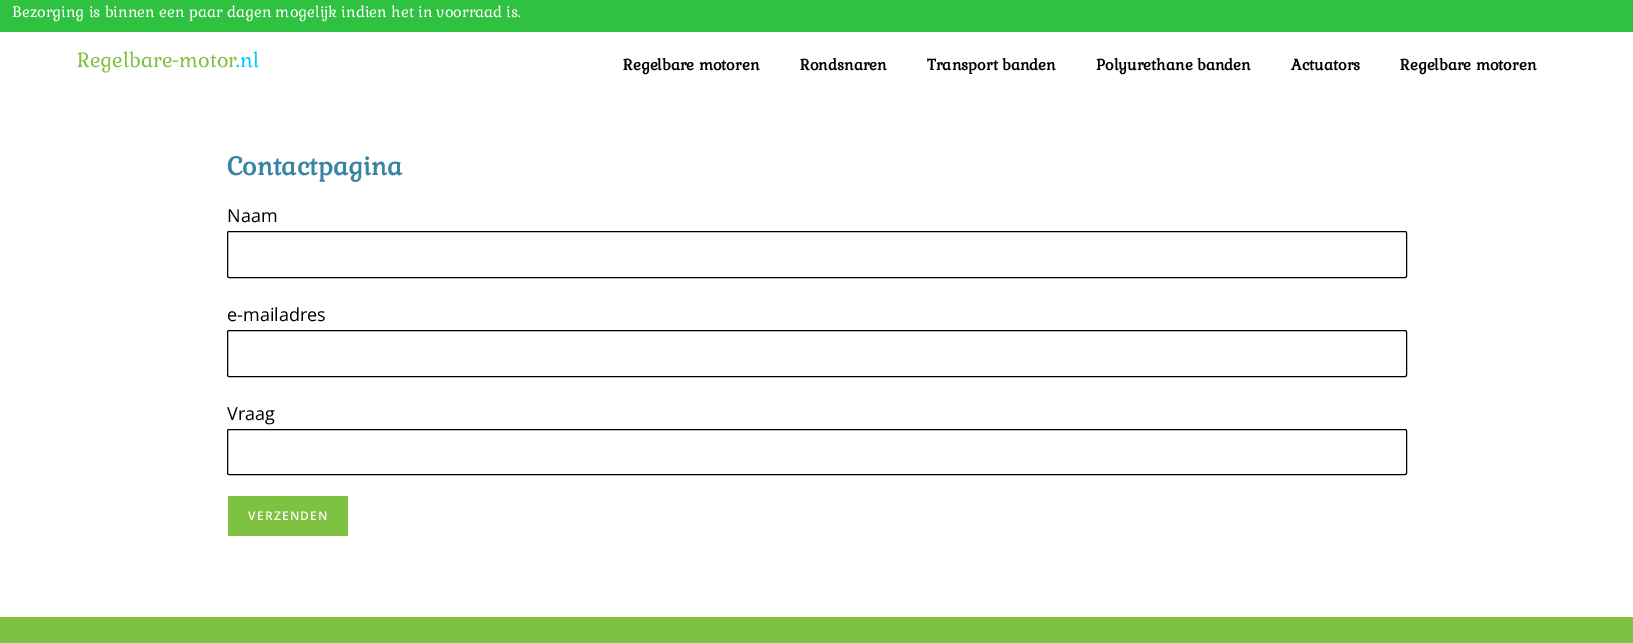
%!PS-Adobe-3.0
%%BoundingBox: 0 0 1633 643
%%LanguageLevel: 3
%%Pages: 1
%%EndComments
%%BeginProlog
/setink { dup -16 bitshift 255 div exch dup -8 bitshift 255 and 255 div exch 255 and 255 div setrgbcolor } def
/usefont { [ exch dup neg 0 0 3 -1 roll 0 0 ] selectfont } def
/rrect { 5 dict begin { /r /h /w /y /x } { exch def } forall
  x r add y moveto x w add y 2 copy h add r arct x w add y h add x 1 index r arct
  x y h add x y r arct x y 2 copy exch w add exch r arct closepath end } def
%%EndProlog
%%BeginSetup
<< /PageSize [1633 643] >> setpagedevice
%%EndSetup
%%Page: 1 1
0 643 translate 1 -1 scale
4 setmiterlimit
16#FFFFFF setink
0 0 1633 643 rectfill
16#2FC241 setink
0 0 1633 32 rectfill
/Gabriela-Regular 15 usefont
16#FFFFFF setink
12 17 moveto (Bezorging is binnen een paar dagen mogelijk indien het in voorraad is.) show
/Gabriela-Regular 20 usefont
16#7FC241 setink
77 67 moveto (Regelbare-motor) show
16#00CCFF setink
236 67 moveto (.nl) show
/Gabriela-Bold 15 usefont
16#000000 setink
[
    [(Regelbare motoren) 623 70]
    [(Rondsnaren) 800 70]
    [(Transport banden) 927 70]
    [(Polyurethane banden) 1096 70]
    [(Actuators) 1291 70]
    [(Regelbare motoren) 1400 70]
] { aload pop moveto show } forall
/Gabriela-Bold 25 usefont
16#3884A4 setink
227 175 moveto (Contactpagina) show
/OpenSans-Regular 18 usefont
16#000000 setink
227 222 moveto (Naam) show
227.5 231.5 1179 46 1.5 rrect stroke
227 321 moveto (e-mailadres) show
227.5 330.5 1179 46 1.5 rrect stroke
227 420 moveto (Vraag) show
227.5 429.5 1179 45 1.5 rrect stroke
16#7FC241 setink
228 496 120 40 rectfill
/OpenSans-SemiBold 12 usefont
16#FFFFFF setink
248 520 moveto 1.25 0 (VERZENDEN) ashow
16#7FC241 setink
0 617 1633 26 rectfill
showpage
%%EOF
